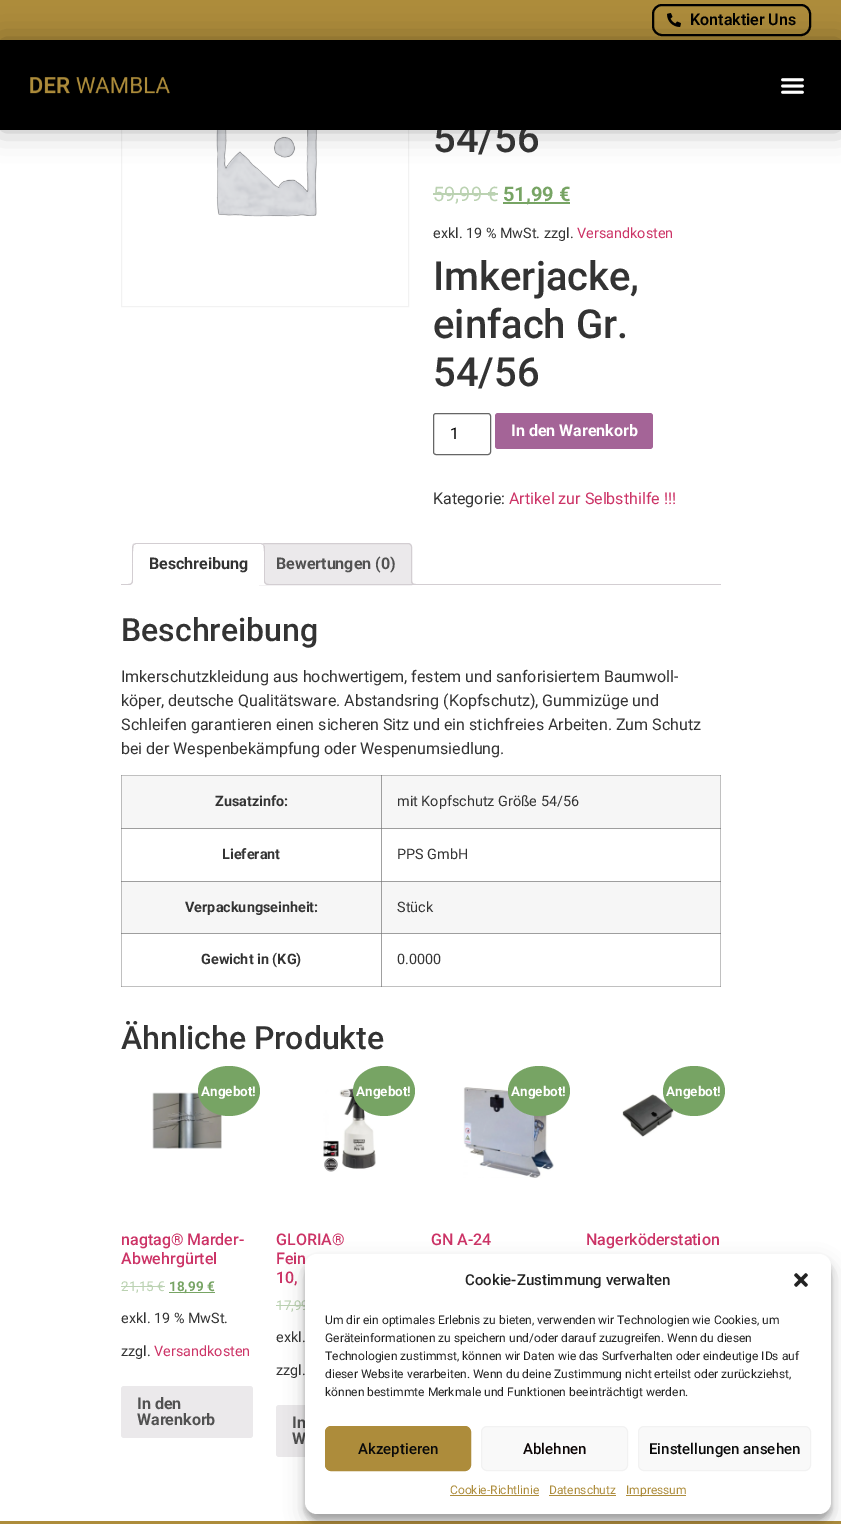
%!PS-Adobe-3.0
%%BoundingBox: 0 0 841 1524
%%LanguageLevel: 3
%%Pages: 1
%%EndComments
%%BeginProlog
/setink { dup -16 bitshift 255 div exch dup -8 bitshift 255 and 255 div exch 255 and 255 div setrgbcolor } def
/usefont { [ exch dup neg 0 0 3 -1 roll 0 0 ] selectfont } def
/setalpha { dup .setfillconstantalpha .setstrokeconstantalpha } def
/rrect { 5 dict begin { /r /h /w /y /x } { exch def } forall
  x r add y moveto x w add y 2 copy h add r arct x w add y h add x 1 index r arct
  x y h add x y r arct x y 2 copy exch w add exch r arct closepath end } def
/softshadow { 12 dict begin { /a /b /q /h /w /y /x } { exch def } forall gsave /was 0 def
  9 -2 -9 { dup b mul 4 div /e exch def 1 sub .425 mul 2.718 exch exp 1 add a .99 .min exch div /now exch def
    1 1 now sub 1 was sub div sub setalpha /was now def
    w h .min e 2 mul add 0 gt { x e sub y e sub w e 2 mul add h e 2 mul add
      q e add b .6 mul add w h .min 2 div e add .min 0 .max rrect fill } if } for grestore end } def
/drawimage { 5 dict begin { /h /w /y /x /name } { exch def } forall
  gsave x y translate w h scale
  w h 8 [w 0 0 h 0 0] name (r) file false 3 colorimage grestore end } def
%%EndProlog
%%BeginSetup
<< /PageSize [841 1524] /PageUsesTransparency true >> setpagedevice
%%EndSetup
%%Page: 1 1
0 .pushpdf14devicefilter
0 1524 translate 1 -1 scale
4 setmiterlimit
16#FFFFFF setink
0 0 841 1524 rectfill
[
    [121 775 261 1 16#C0C0C0]
    [121 775 1 1 16#A0A0A0]
    [720 775 1 159 16#C0C0C0]
    [121 828 1 54 16#C0C0C0]
    [381 828 1 54 16#A0A0A0]
    [720 828 1 1 16#888888]
    [720 881 1 1 16#888888]
    [121 933 1 54 16#C0C0C0]
    [121 986 261 1 16#C0C0C0]
    [121 986 1 1 16#A0A0A0]
    [381 933 1 54 16#A0A0A0]
    [381 986 340 1 16#C0C0C0]
    [381 986 1 1 16#888888]
    [720 933 1 54 16#C0C0C0]
    [720 986 1 1 16#A0A0A0]
    [720 933 1 1 16#888888]
] { aload pop setink rectfill } forall
16#F2F2F2 setink
121.5 19.5 287 287 rectstroke
16#AD8C3B setink
0 0 841 40 rectfill
16#000000 setink
2 setlinewidth
653 5 157 30 9 rrect stroke
(img3.raw) 667 13 14 14 drawimage
(img4.raw) 216 130 101 87 drawimage
0 40 841 90 0 15 0.3 softshadow
/Roboto-Medium 40 usefont
16#333333 setink
433 152 moveto (54/56) show
16#000000 setink
0 40 841 90 rectfill
(img1.raw) 30 77 140 17 drawimage
(img2.raw) 781 78 23 16 drawimage
/Roboto-SemiBold 16 usefont
690 25 moveto (Kontaktier Uns) show
/Roboto-Regular 20 usefont
16#BBD2B2 setink
433 201 moveto (59,99 €) show
433 193 65 2 rectfill
16#77A464 setink
503 202 67 2 rectfill
/Roboto-Bold 20 usefont
503 201 moveto (51,99 €) show
/Roboto-Regular 14.4 usefont
16#333333 setink
433 238 moveto (exkl. 19 % MwSt. zzgl.) show
16#CC3366 setink
577 238 moveto (Versandkosten) show
/Roboto-Medium 40 usefont
16#333333 setink
[
    [(Imkerjacke,) 433 290]
    [(einfach Gr.) 433 338]
    [(54/56) 433 386]
] { aload pop moveto show } forall
16#666666 setink
1 setlinewidth
433.5 413.5 57 41 2.5 rrect stroke
/Roboto-Regular 16 usefont
16#000000 setink
450 439 moveto (1) show
16#A46497 setink
495 413 158 36 3 rrect fill
/Roboto-Bold 16 usefont
16#FFFFFF setink
511 436 moveto (In den Warenkorb) show
/Roboto-Regular 16 usefont
16#333333 setink
433 504 moveto (Kategorie:) show
16#CC3366 setink
509 504 moveto (Artikel zur Selbsthilfe !!!) show
16#EBE9EB setink
263 543.5 moveto 408 543.5 lineto 410 543.5 411.5 545 411.5 547 curveto 411.5 584.5 lineto 259.5 584.5 lineto 259.5 547 lineto 259.5 545 261 543.5 263 543.5 curveto closepath gsave fill grestore
16#D3CED2 setink
stroke
gsave
121 543 600 42 rectclip
16#EBE9EB setink
409 582 moveto 409 585.5 410.5 587 414 587 curveto 414 585 lineto 412.5 584.5 411.5 583.5 411 582 curveto closepath fill
grestore
411 580 moveto 416 580 lineto 416 585 lineto 413.5 585 411 584 411 581 curveto closepath 412 580 moveto 416 580 lineto 416 584 lineto 414 584 412 583.5 412 581 curveto closepath eofill
121 584 600 1 rectfill
16#FFFFFF setink
136 543 moveto 261 543 lineto 263 543 265 545 265 547 curveto 265 585 lineto 132 585 lineto 132 547 lineto 132 545 134 543 136 543 curveto closepath fill
16#D3CED2 setink
136 543 moveto 133 544 lineto 134 545 lineto 136 544 lineto 261 544 lineto 263 545 lineto 264 544 lineto 261 543 lineto closepath fill
265 585 moveto 265 547 lineto 265 546 264 545 264 544 curveto 263 545 lineto 265 547 264 579 264 584 curveto closepath fill
16#FFFFFF setink
265 585 moveto 264 584 lineto 133 584 lineto 132 585 lineto closepath fill
16#D3CED2 setink
132 585 moveto 133 584 lineto 133 579 132 547 134 545 curveto 133 544 lineto 132 547 lineto closepath fill
/Roboto-Bold 16 usefont
16#333333 setink
149 569 moveto (Beschreibung) show
gsave
121 543 600 42 rectclip
16#FFFFFF setink
130 585 moveto 130 587 lineto 133.5 587 135 585.5 135 582 curveto 133 582 lineto 132.5 583.5 131.5 584.5 130 585 curveto closepath fill
grestore
16#D3CED2 setink
128 580 moveto 133 580 lineto 133 583.5 131.5 585 128 585 curveto closepath 128 580 moveto 132 580 lineto 132 583 131 584 128 584 curveto closepath eofill
gsave
121 543 600 42 rectclip
16#FFFFFF setink
262 582 moveto 262 585.5 263.5 587 267 587 curveto 267 585 lineto 265.5 584.5 264.5 583.5 264 582 curveto closepath fill
grestore
264 580 moveto 269 580 lineto 269 585 lineto 266.5 585 264 584 264 581 curveto closepath 265 580 moveto 269 580 lineto 269 584 lineto 267 584 265 583.5 265 581 curveto closepath eofill
16#515151 setink
276 569 moveto (Bewertungen \(0\)) show
/Roboto-Medium 32 usefont
16#333333 setink
121 641 moveto (Beschreibung) show
/Roboto-Regular 16 usefont
[
    [(Imkerschutzkleidung aus hochwertigem, festem und sanforisiertem Baumwoll-) 121 682]
    [(köper, deutsche Qualitätsware. Abstandsring \(Kopfschutz\), Gummizüge und) 121 706]
    [(Schleifen garantieren einen sicheren Sitz und ein stichfreies Arbeiten. Zum Schutz) 121 730]
    [(bei der Wespenbekämpfung oder Wespenumsiedlung.) 121 754]
] { aload pop moveto show } forall
[
    [122 776 259 52 16#F6F6F6]
    [121 776 1 53 16#BBBBBB]
    [381 776 1 53 16#9E9E9E]
    [121 828 599 1 16#9E9E9E]
    [121 828 1 1 16#888888]
    [381 828 1 1 16#818181]
] { aload pop setink rectfill } forall
/Roboto-Bold 14.4 usefont
16#333333 setink
215 806 moveto (Zusatzinfo:) show
[
    [382 776 338 52 16#F6F6F6]
    [381 775 340 1 16#C0C0C0]
    [381 775 1 1 16#888888]
    [720 775 1 1 16#A0A0A0]
] { aload pop setink rectfill } forall
/Roboto-Regular 14.4 usefont
16#333333 setink
397 806 moveto (mit Kopfschutz Größe 54/56) show
/Roboto-Bold 14.4 usefont
222 859 moveto (Lieferant) show
/Roboto-Regular 14.4 usefont
397 859 moveto (PPS GmbH) show
[
    [122 882 259 51 16#F6F6F6]
    [121 881 1 53 16#BBBBBB]
    [121 881 599 1 16#9E9E9E]
    [121 881 1 1 16#888888]
    [381 881 1 53 16#9E9E9E]
    [381 881 1 1 16#818181]
    [121 933 599 1 16#9E9E9E]
    [121 933 1 1 16#888888]
    [381 933 1 1 16#818181]
] { aload pop setink rectfill } forall
/Roboto-Bold 14.4 usefont
16#333333 setink
185 912 moveto (Verpackungseinheit:) show
16#F6F6F6 setink
382 882 338 51 rectfill
/Roboto-Regular 14.4 usefont
16#333333 setink
397 912 moveto (Stück) show
/Roboto-Bold 14.4 usefont
201 964 moveto (Gewicht in \(KG\)) show
/Roboto-Regular 14.4 usefont
397 964 moveto (0.0000) show
/Roboto-Medium 32 usefont
121 1049 moveto (Ähnliche Produkte) show
(img5.raw) 152 1092 70 57 drawimage
16#77A464 setink
229 1066 moveto 246 1066 260 1077 260 1091 curveto 260 1105 246 1116 229 1116 curveto 212 1116 198 1105 198 1091 curveto 198 1077 212 1066 229 1066 curveto closepath fill
/Roboto-Bold 13.5 usefont
16#FFFFFF setink
201 1096 moveto (Angebot!) show
/Roboto-Medium 16 usefont
16#CC3366 setink
121 1245 moveto (nagtag® Marder-) show
121 1264 moveto (Abwehrgürtel) show
/Roboto-Regular 13.5 usefont
16#BBD2B2 setink
121 1291 moveto (21,15 €) show
121 1286 44 1 rectfill
16#77A464 setink
169 1292 46 1 rectfill
/Roboto-Bold 13.5 usefont
169 1291 moveto (18,99 €) show
/Roboto-Regular 14.4 usefont
16#333333 setink
121 1323 moveto (exkl. 19 % MwSt.) show
121 1356 moveto (zzgl.) show
16#CC3366 setink
154 1356 moveto (Versandkosten) show
16#EBE9EB setink
121 1386 132 52 3 rrect fill
/Roboto-Bold 16 usefont
16#515151 setink
137 1409 moveto (In den) show
137 1425 moveto (Warenkorb) show
(img6.raw) 323 1087 53 85 drawimage
16#77A464 setink
384 1066 moveto 401 1066 415 1077 415 1091 curveto 415 1105 401 1116 384 1116 curveto 367 1116 353 1105 353 1091 curveto 353 1077 367 1066 384 1066 curveto closepath fill
/Roboto-Bold 13.5 usefont
16#FFFFFF setink
356 1096 moveto (Angebot!) show
/Roboto-Medium 16 usefont
16#CC3366 setink
[
    [(GLORIA®) 276 1245]
    [(Fein) 276 1264]
    [(10,) 276 1283]
] { aload pop moveto show } forall
/Roboto-Regular 13.5 usefont
16#BBD2B2 setink
276 1310 moveto (17,99) show
276 1305 37 1 rectfill
/Roboto-Regular 14.4 usefont
16#333333 setink
276 1342 moveto (exkl.) show
276 1375 moveto (zzgl.) show
16#EBE9EB setink
276 1405 132 52 3 rrect fill
/Roboto-Bold 16 usefont
16#515151 setink
292 1428 moveto (In) show
292 1444 moveto (W) show
(img7.raw) 463 1087 91 91 drawimage
16#77A464 setink
539 1066 moveto 556 1066 570 1077 570 1091 curveto 570 1105 556 1116 539 1116 curveto 522 1116 508 1105 508 1091 curveto 508 1077 522 1066 539 1066 curveto closepath fill
/Roboto-Bold 13.5 usefont
16#FFFFFF setink
511 1096 moveto (Angebot!) show
/Roboto-Medium 16 usefont
16#CC3366 setink
431 1245 moveto (GN A-24) show
(img8.raw) 622 1094 52 43 drawimage
16#77A464 setink
694 1066 moveto 711 1066 725 1077 725 1091 curveto 725 1105 711 1116 694 1116 curveto 677 1116 663 1105 663 1091 curveto 663 1077 677 1066 694 1066 curveto closepath fill
/Roboto-Bold 13.5 usefont
16#FFFFFF setink
666 1096 moveto (Angebot!) show
/Roboto-Medium 16 usefont
16#CC3366 setink
586 1245 moveto (Nagerköderstation) show
16#AD8C3B setink
0 1521 841 3 rectfill
16#000000 setink
305 1260 526 260 12 3 0.23 softshadow
305 1264 526 260 12 10 0.19 softshadow
16#FFFFFF setink
305 1254 526 260 12 rrect fill
/Roboto-Medium 15 usefont
16#222222 setink
465 1285 moveto (Cookie-Zustimmung verwalten) show
(img9.raw) 794 1273 14 14 drawimage
/Roboto-Regular 12 usefont
[
    [(Um dir ein optimales Erlebnis zu bieten, verwenden wir Technologien wie Cookies, um) 325 1324]
    [(Geräteinformationen zu speichern und/oder darauf zuzugreifen. Wenn du diesen) 325 1342]
    [(Technologien zustimmst, können wir Daten wie das Surfverhalten oder eindeutige IDs auf) 325 1360]
    [(dieser Website verarbeiten. Wenn du deine Zustimmung nicht erteilst oder zurückziehst,) 325 1378]
    [(können bestimmte Merkmale und Funktionen beeinträchtigt werden.) 325 1396]
] { aload pop moveto show } forall
16#AD8C3B setink
325.5 1426.5 145 44 5.5 rrect gsave fill grestore
stroke
/Roboto-Medium 15 usefont
16#0A0A0A setink
358 1454 moveto (Akzeptieren) show
16#F9F9F9 setink
481.5 1426.5 146 44 5.5 rrect gsave fill grestore
16#F2F2F2 setink
stroke
16#0A0303 setink
523 1454 moveto (Ablehnen) show
16#F9F9F9 setink
638.5 1426.5 172 44 5.5 rrect gsave fill grestore
16#F2F2F2 setink
stroke
16#0A0A0A setink
649 1454 moveto (Einstellungen ansehen) show
/Roboto-Regular 12 usefont
16#AD8C3B setink
450 1494 moveto (Cookie-Richtlinie) show
450 1495 89 1 rectfill
549 1494 moveto (Datenschutz) show
549 1495 67 1 rectfill
626 1495 60 1 rectfill
626 1494 moveto (Impressum) show
.poppdf14devicefilter showpage
%%EOF
